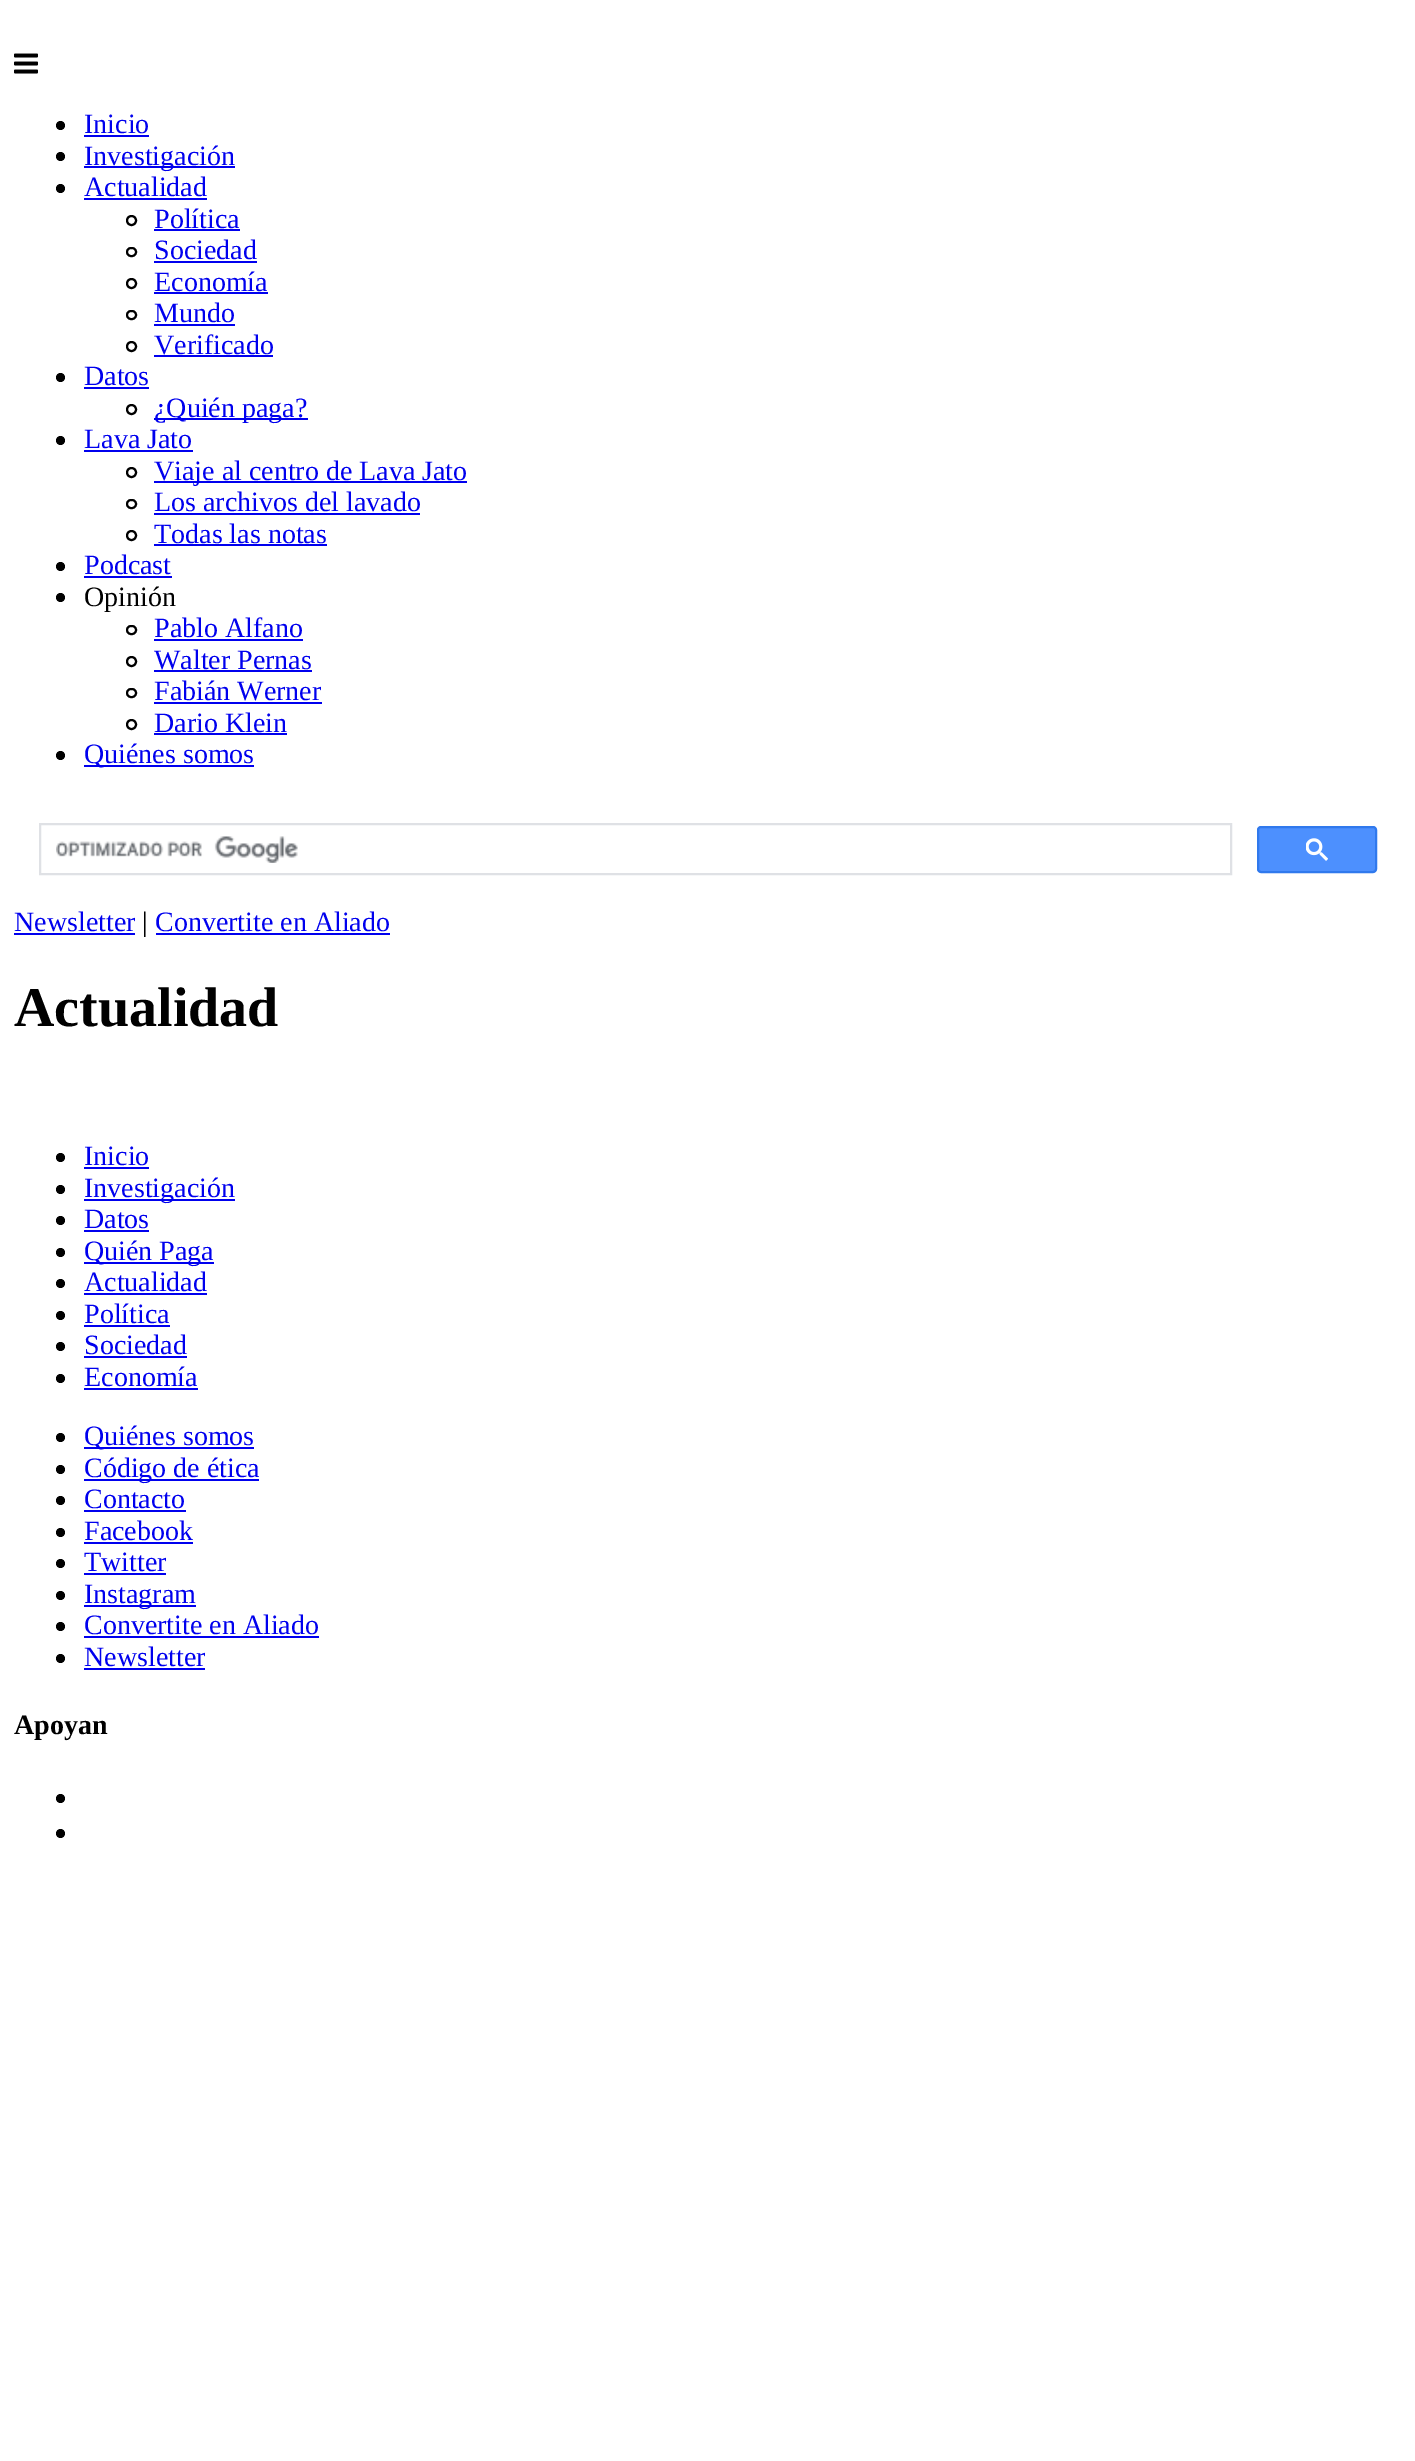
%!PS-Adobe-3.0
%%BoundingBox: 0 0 1415 2461
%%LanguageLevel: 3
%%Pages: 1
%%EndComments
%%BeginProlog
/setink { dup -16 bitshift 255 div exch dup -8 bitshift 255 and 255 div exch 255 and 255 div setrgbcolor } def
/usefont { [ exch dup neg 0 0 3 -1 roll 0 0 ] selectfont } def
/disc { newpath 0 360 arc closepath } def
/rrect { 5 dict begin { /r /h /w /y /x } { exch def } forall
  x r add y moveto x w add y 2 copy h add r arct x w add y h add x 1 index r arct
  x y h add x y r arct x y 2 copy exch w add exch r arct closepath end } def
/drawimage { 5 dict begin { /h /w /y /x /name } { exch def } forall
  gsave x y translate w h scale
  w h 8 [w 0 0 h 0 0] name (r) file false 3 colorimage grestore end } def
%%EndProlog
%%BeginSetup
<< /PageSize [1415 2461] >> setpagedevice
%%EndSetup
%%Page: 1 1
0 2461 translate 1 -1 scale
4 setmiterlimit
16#FFFFFF setink
0 0 1415 2461 rectfill
(img1.raw) 14 53 24 21 drawimage
16#000000 setink
60.5 125.5 4.5 disc fill
/LiberationSerif-Regular 28 usefont
16#0000EE setink
84 133 moveto (Inicio) show
84 135 65 2 rectfill
16#000000 setink
60.5 156.5 4.5 disc fill
16#0000EE setink
84 166 151 2 rectfill
84 165 moveto (Investigación) show
16#000000 setink
60.5 188.5 4.5 disc fill
16#0000EE setink
84 196 moveto (Actualidad) show
84 198 123 2 rectfill
16#000000 setink
2 setlinewidth
131.5 220.5 4.5 disc stroke
16#0000EE setink
154 228 moveto (Política) show
154 229 86 2 rectfill
16#000000 setink
127 248 9 8 4 rrect stroke
16#0000EE setink
154 259 moveto (Sociedad) show
154 261 103 2 rectfill
16#000000 setink
131.5 283.5 4.5 disc stroke
16#0000EE setink
154 291 moveto (Economía) show
154 292 114 2 rectfill
16#000000 setink
127 311 9 8 4 rrect stroke
16#0000EE setink
154 322 moveto (Mundo) show
154 324 81 2 rectfill
16#000000 setink
131.5 346.5 4.5 disc stroke
16#0000EE setink
154 354 moveto (Verificado) show
154 355 119 2 rectfill
16#000000 setink
60.5 377.5 4.5 disc fill
16#0000EE setink
84 385 moveto (Datos) show
84 387 65 2 rectfill
16#000000 setink
131.5 409.5 4.5 disc stroke
16#0000EE setink
154 418 154 2 rectfill
154 417 moveto (¿Quién paga?) show
16#000000 setink
60.5 440.5 4.5 disc fill
16#0000EE setink
84 448 moveto (Lava Jato) show
84 450 109 2 rectfill
16#000000 setink
131.5 472.5 4.5 disc stroke
16#0000EE setink
154 481 313 2 rectfill
154 480 moveto (Viaje al centro de Lava Jato) show
16#000000 setink
127 500 9 8 4 rrect stroke
16#0000EE setink
154 511 moveto (Los archivos del lavado) show
154 513 266 2 rectfill
16#000000 setink
131.5 535.5 4.5 disc stroke
16#0000EE setink
154 543 moveto (Todas las notas) show
154 544 173 2 rectfill
16#000000 setink
60.5 566.5 4.5 disc fill
16#0000EE setink
84 574 moveto (Podcast) show
84 576 88 2 rectfill
16#000000 setink
60.5 597.5 4.5 disc fill
84 606 moveto (Opinión) show
127 626 9 8 4 rrect stroke
16#0000EE setink
154 637 moveto (Pablo Alfano) show
154 639 149 2 rectfill
16#000000 setink
131.5 661.5 4.5 disc stroke
16#0000EE setink
154 669 moveto (Walter Pernas) show
154 670 158 2 rectfill
16#000000 setink
127 689 9 8 4 rrect stroke
16#0000EE setink
154 700 moveto (Fabián Werner) show
154 702 168 2 rectfill
16#000000 setink
131.5 724.5 4.5 disc stroke
16#0000EE setink
154 732 moveto (Dario Klein) show
154 733 133 2 rectfill
16#000000 setink
60.5 755.5 4.5 disc fill
16#0000EE setink
84 765 170 2 rectfill
84 763 moveto (Quiénes somos) show
16#DFE1E5 setink
40 824 1191 50 rectstroke
(img2.raw) 56 836 242 27 drawimage
16#4D90FE setink
1258 827 118 45 3 rrect gsave fill grestore
16#3079ED setink
stroke
(img3.raw) 1306 838 22 23 drawimage
16#0000EE setink
14 931 moveto (Newsletter) show
14 933 121 2 rectfill
16#000000 setink
142 931 moveto (|) show
16#0000EE setink
155 931 moveto (Convertite en Aliado) show
156 933 234 2 rectfill
/LiberationSerif-Bold 56 usefont
16#000000 setink
14 1026 moveto (Actualidad) show
60.5 1157.5 4.5 disc fill
/LiberationSerif-Regular 28 usefont
16#0000EE setink
84 1165 moveto (Inicio) show
84 1167 65 2 rectfill
16#000000 setink
60.5 1189.5 4.5 disc fill
16#0000EE setink
84 1199 151 2 rectfill
84 1197 moveto (Investigación) show
16#000000 setink
60.5 1220.5 4.5 disc fill
16#0000EE setink
84 1228 moveto (Datos) show
84 1230 65 2 rectfill
16#000000 setink
60.5 1252.5 4.5 disc fill
16#0000EE setink
84 1262 130 2 rectfill
84 1260 moveto (Quién Paga) show
16#000000 setink
60.5 1283.5 4.5 disc fill
16#0000EE setink
84 1291 moveto (Actualidad) show
84 1293 123 2 rectfill
16#000000 setink
60.5 1315.5 4.5 disc fill
16#0000EE setink
84 1323 moveto (Política) show
84 1325 86 2 rectfill
16#000000 setink
60.5 1346.5 4.5 disc fill
16#0000EE setink
84 1354 moveto (Sociedad) show
84 1356 103 2 rectfill
16#000000 setink
60.5 1378.5 4.5 disc fill
16#0000EE setink
84 1386 moveto (Economía) show
84 1388 114 2 rectfill
16#000000 setink
60.5 1437.5 4.5 disc fill
16#0000EE setink
84 1447 170 2 rectfill
84 1445 moveto (Quiénes somos) show
16#000000 setink
60.5 1469.5 4.5 disc fill
16#0000EE setink
84 1479 175 2 rectfill
84 1477 moveto (Código de ética) show
16#000000 setink
60.5 1500.5 4.5 disc fill
16#0000EE setink
84 1508 moveto (Contacto) show
84 1510 102 2 rectfill
16#000000 setink
60.5 1532.5 4.5 disc fill
16#0000EE setink
84 1540 moveto (Facebook) show
84 1542 109 2 rectfill
16#000000 setink
60.5 1563.5 4.5 disc fill
16#0000EE setink
84 1571 moveto (Twitter) show
84 1573 82 2 rectfill
16#000000 setink
60.5 1595.5 4.5 disc fill
16#0000EE setink
84 1605 112 2 rectfill
84 1603 moveto (Instagram) show
16#000000 setink
60.5 1626.5 4.5 disc fill
16#0000EE setink
84 1634 moveto (Convertite en Aliado) show
84 1636 235 2 rectfill
16#000000 setink
60.5 1658.5 4.5 disc fill
16#0000EE setink
84 1666 moveto (Newsletter) show
84 1668 121 2 rectfill
/LiberationSerif-Bold 28 usefont
16#000000 setink
14 1734 moveto (Apoyan) show
60.5 1798.5 4.5 disc fill
60.5 1833.5 4.5 disc fill
showpage
%%EOF
